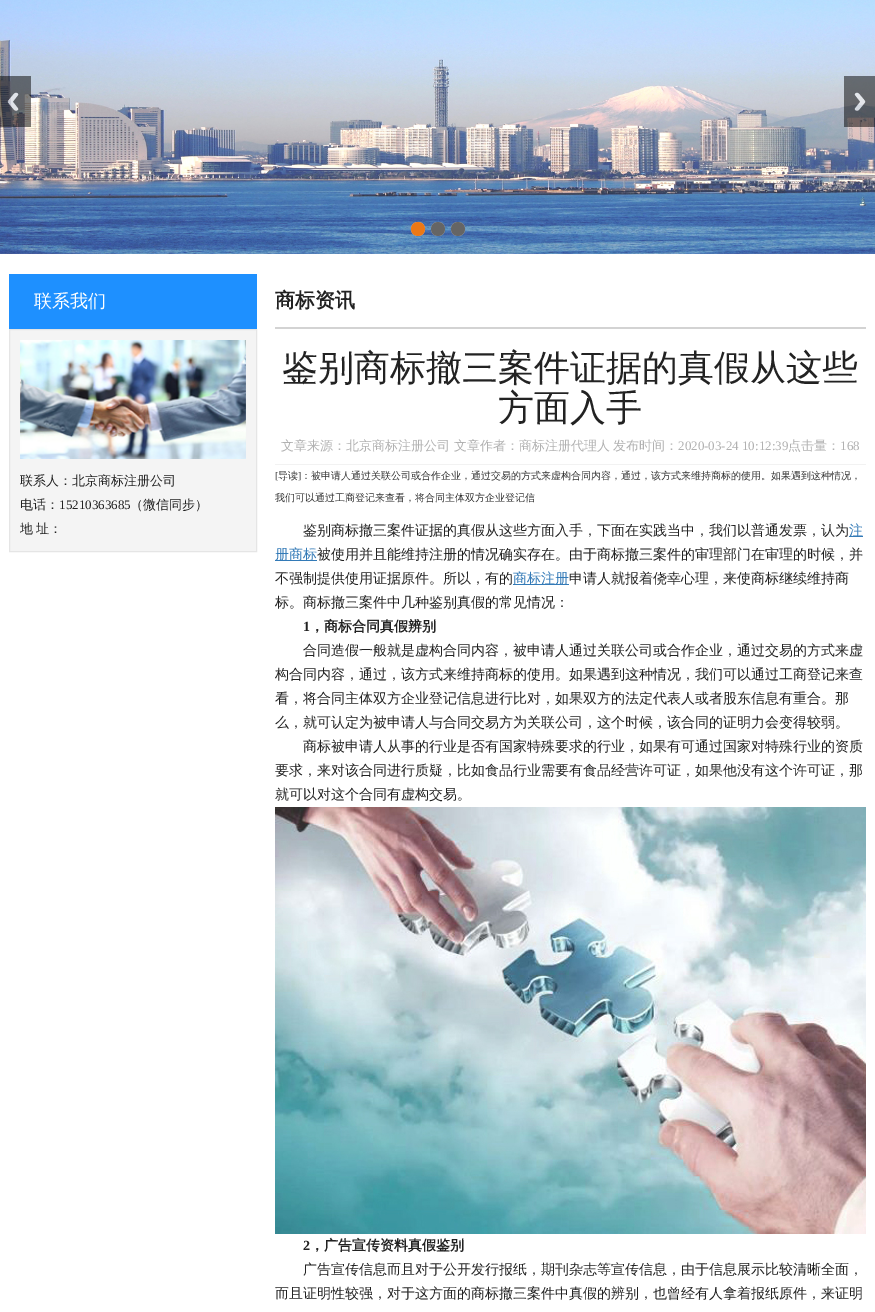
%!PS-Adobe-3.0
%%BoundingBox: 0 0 875 1312
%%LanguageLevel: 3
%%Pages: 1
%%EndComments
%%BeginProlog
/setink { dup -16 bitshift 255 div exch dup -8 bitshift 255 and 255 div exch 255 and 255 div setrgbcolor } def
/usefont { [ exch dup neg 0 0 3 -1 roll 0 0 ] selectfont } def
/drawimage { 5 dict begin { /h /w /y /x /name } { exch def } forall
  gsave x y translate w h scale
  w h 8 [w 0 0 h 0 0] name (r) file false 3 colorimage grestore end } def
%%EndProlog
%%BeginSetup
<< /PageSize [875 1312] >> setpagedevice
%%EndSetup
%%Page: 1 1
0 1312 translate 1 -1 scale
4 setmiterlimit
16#FFFFFF setink
0 0 875 1312 rectfill
(img1.raw) 0 0 875 254 drawimage
(img2.raw) 0 76 31 51 drawimage
(img3.raw) 844 76 31 51 drawimage
(img4.raw) 411 222 14 14 drawimage
(img5.raw) 431 222 14 14 drawimage
(img6.raw) 451 222 14 14 drawimage
16#1E90FF setink
9 274 248 55 rectfill
/WenQuanYiZenHei-Medium 18 usefont
16#FFFFFF setink
34 307 moveto (联系我们) show
16#F4F4F4 setink
9.5 329.5 moveto 256.5 329.5 lineto 256.5 551.5 lineto 9.5 551.5 lineto closepath gsave fill grestore
16#E5E5E5 setink
stroke
(img7.raw) 20 340 226 119 drawimage
/WenQuanYiZenHei-Medium 13 usefont
16#222222 setink
20 485 moveto (联系人：北京商标注册公司) show
20 509 moveto (电话：) show
/LiberationSerif-Regular 13 usefont
59 509 moveto (15210363685) show
/WenQuanYiZenHei-Medium 13 usefont
130 509 moveto (（微信同步）) show
20 533 moveto -1 0 32 (地 址：) widthshow
16#D3D3D3 setink
275 327 591 2 rectfill
/WenQuanYiZenHei-Bold 20 usefont
16#222222 setink
275 307 moveto (商标资讯) show
/WenQuanYiZenHei-Medium 36 usefont
282 380 moveto (鉴别商标撤三案件证据的真假从这些) show
498 420 moveto (方面入手) show
16#F2F2F2 setink
275 464 591 1 rectfill
/WenQuanYiZenHei-Medium 13 usefont
16#B1B1B1 setink
[
    [(文章来源：北京商标注册公司) 281 450]
    [(文章作者：商标注册代理人) 454 450]
    [(发布时间：) 613 450]
] { aload pop moveto show } forall
/LiberationSerif-Regular 13 usefont
678 450 moveto (2020-03-24 10:12:39) show
/WenQuanYiZenHei-Medium 13 usefont
788 450 moveto (点击量：) show
/LiberationSerif-Regular 13 usefont
840 450 moveto (168) show
/LiberationSerif-Regular 10 usefont
16#333333 setink
275 479 moveto ([) show
/WenQuanYiZenHei-Medium 10 usefont
278 479 moveto (导读) show
/LiberationSerif-Regular 10 usefont
298 479 moveto (]) show
/WenQuanYiZenHei-Medium 10 usefont
301 479 moveto (：被申请人通过关联公司或合作企业，通过交易的方式来虚构合同内容，通过，该方式来维持商标的使用。如果遇到这种情况，) show
275 501 moveto (我们可以通过工商登记来查看，将合同主体双方企业登记信) show
/WenQuanYiZenHei-Medium 14 usefont
16#222222 setink
303 535 moveto (鉴别商标撤三案件证据的真假从这些方面入手，下面在实践当中，我们以普通发票，认为) show
16#337AB7 setink
849 536 14 1 rectfill
849 535 moveto (注) show
275 560 42 1 rectfill
275 559 moveto (册商标) show
16#222222 setink
317 559 moveto (被使用并且能维持注册的情况确实存在。由于商标撤三案件的审理部门在审理的时候，并) show
275 583 moveto (不强制提供使用证据原件。所以，有的) show
16#337AB7 setink
513 584 56 1 rectfill
513 583 moveto (商标注册) show
16#222222 setink
569 583 moveto (申请人就报着侥幸心理，来使商标继续维持商) show
275 607 moveto (标。商标撤三案件中几种鉴别真假的常见情况：) show
/LiberationSerif-Bold 14 usefont
303 631 moveto (1) show
/WenQuanYiZenHei-Bold 14 usefont
310 631 moveto (，商标合同真假辨别) show
/WenQuanYiZenHei-Medium 14 usefont
[
    [(合同造假一般就是虚构合同内容，被申请人通过关联公司或合作企业，通过交易的方式来虚) 303 655]
    [(构合同内容，通过，该方式来维持商标的使用。如果遇到这种情况，我们可以通过工商登记来查) 275 679]
    [(看，将合同主体双方企业登记信息进行比对，如果双方的法定代表人或者股东信息有重合。那) 275 703]
    [(么，就可认定为被申请人与合同交易方为关联公司，这个时候，该合同的证明力会变得较弱。) 275 727]
    [(商标被申请人从事的行业是否有国家特殊要求的行业，如果有可通过国家对特殊行业的资质) 303 751]
    [(要求，来对该合同进行质疑，比如食品行业需要有食品经营许可证，如果他没有这个许可证，那) 275 775]
    [(就可以对这个合同有虚构交易。) 275 799]
] { aload pop moveto show } forall
(img8.raw) 275 807 591 427 drawimage
/LiberationSerif-Bold 14 usefont
303 1250 moveto (2) show
/WenQuanYiZenHei-Bold 14 usefont
310 1250 moveto (，广告宣传资料真假鉴别) show
/WenQuanYiZenHei-Medium 14 usefont
303 1274 moveto (广告宣传信息而且对于公开发行报纸，期刊杂志等宣传信息，由于信息展示比较清晰全面，) show
275 1298 moveto (而且证明性较强，对于这方面的商标撤三案件中真假的辨别，也曾经有人拿着报纸原件，来证明) show
showpage
%%EOF
